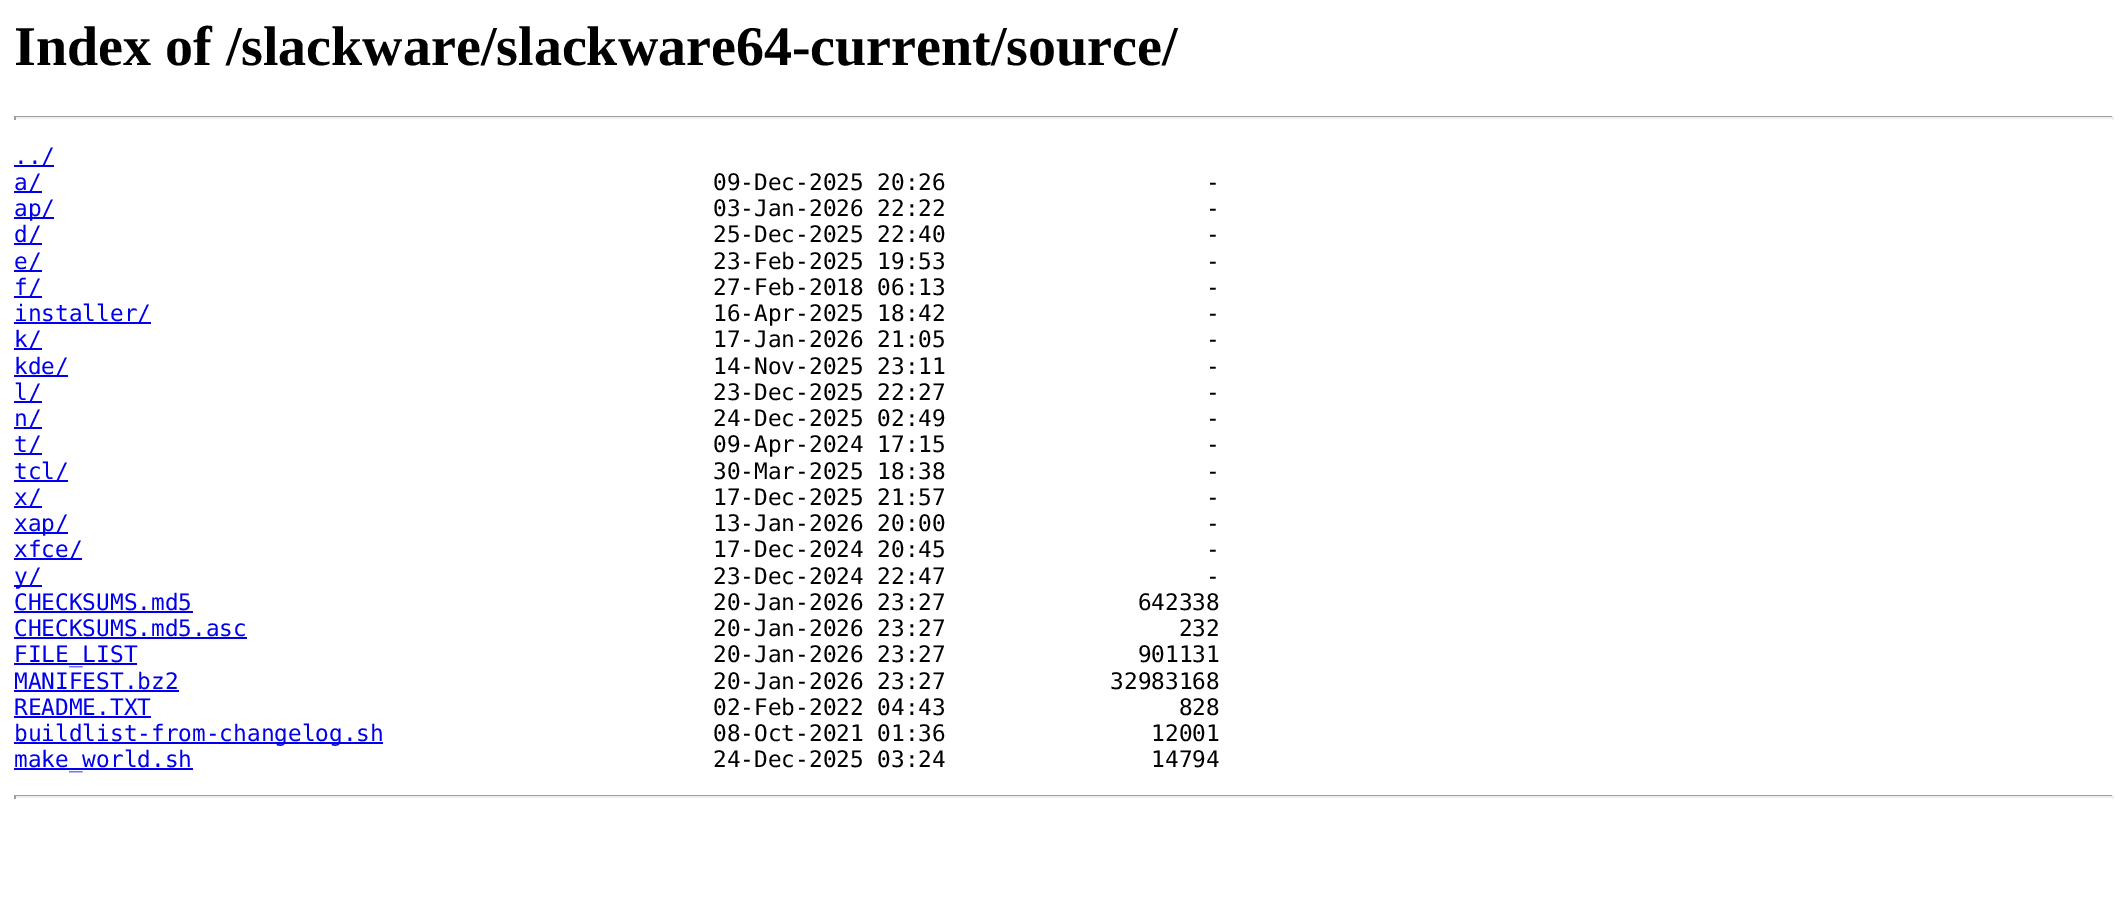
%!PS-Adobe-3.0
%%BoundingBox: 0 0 2128 910
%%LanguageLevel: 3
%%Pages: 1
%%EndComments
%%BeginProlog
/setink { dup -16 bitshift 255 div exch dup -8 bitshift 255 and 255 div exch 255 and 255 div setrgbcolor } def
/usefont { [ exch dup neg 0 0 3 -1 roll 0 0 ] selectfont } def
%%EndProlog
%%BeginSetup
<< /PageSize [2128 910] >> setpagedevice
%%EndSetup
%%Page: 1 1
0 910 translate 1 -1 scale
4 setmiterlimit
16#FFFFFF setink
0 0 2128 910 rectfill
/LiberationSerif-Bold 56 usefont
16#000000 setink
14 65 moveto (Index of /slackware/slackware64-current/source/) show
[
    [14 116 2100 1 16#9F9F9F]
    [2112 116 2 4 16#EEEEEE]
    [14 117 2100 2 16#EEEEEE]
    [14 116 2 4 16#9F9F9F]
    [14 165 40 2 16#0000EE]
] { aload pop setink rectfill } forall
/DejaVuSansMono-Regular 22.75 usefont
14 164 moveto (../) show
14 191 28 2 rectfill
14 190 moveto (a/) show
16#000000 setink
713 190 moveto (09-Dec-2025 20:26                   -) show
16#0000EE setink
14 217 40 2 rectfill
14 216 moveto (ap/) show
16#000000 setink
713 216 moveto (03-Jan-2026 22:22                   -) show
16#0000EE setink
14 243 28 2 rectfill
14 242 moveto (d/) show
16#000000 setink
713 242 moveto (25-Dec-2025 22:40                   -) show
16#0000EE setink
14 270 28 2 rectfill
14 269 moveto (e/) show
16#000000 setink
713 269 moveto (23-Feb-2025 19:53                   -) show
16#0000EE setink
14 296 28 2 rectfill
14 295 moveto (f/) show
16#000000 setink
713 295 moveto (27-Feb-2018 06:13                   -) show
16#0000EE setink
14 322 137 2 rectfill
14 321 moveto (installer/) show
16#000000 setink
713 321 moveto (16-Apr-2025 18:42                   -) show
16#0000EE setink
14 348 28 2 rectfill
14 347 moveto (k/) show
16#000000 setink
713 347 moveto (17-Jan-2026 21:05                   -) show
16#0000EE setink
14 375 54 2 rectfill
14 374 moveto (kde/) show
16#000000 setink
713 374 moveto (14-Nov-2025 23:11                   -) show
16#0000EE setink
14 401 28 2 rectfill
14 400 moveto (l/) show
16#000000 setink
713 400 moveto (23-Dec-2025 22:27                   -) show
16#0000EE setink
14 427 28 2 rectfill
14 426 moveto (n/) show
16#000000 setink
713 426 moveto (24-Dec-2025 02:49                   -) show
16#0000EE setink
14 453 28 2 rectfill
14 452 moveto (t/) show
16#000000 setink
713 452 moveto (09-Apr-2024 17:15                   -) show
16#0000EE setink
14 480 54 2 rectfill
14 479 moveto (tcl/) show
16#000000 setink
713 479 moveto (30-Mar-2025 18:38                   -) show
16#0000EE setink
14 506 28 2 rectfill
14 505 moveto (x/) show
16#000000 setink
713 505 moveto (17-Dec-2025 21:57                   -) show
16#0000EE setink
14 532 54 2 rectfill
14 531 moveto (xap/) show
16#000000 setink
713 531 moveto (13-Jan-2026 20:00                   -) show
16#0000EE setink
14 558 68 2 rectfill
14 557 moveto (xfce/) show
16#000000 setink
713 557 moveto (17-Dec-2024 20:45                   -) show
16#0000EE setink
14 585 28 2 rectfill
14 584 moveto (y/) show
16#000000 setink
713 584 moveto (23-Dec-2024 22:47                   -) show
16#0000EE setink
14 610 moveto (CHECKSUMS.md5) show
14 611 179 2 rectfill
16#000000 setink
713 610 moveto (20-Jan-2026 23:27              642338) show
16#0000EE setink
14 636 moveto (CHECKSUMS.md5.asc) show
14 637 233 2 rectfill
16#000000 setink
713 636 moveto (20-Jan-2026 23:27                 232) show
16#0000EE setink
14 663 123 2 rectfill
14 662 moveto (FILE_LIST) show
16#000000 setink
713 662 moveto (20-Jan-2026 23:27              901131) show
16#0000EE setink
14 689 moveto (MANIFEST.bz2) show
14 690 165 2 rectfill
16#000000 setink
713 689 moveto (20-Jan-2026 23:27            32983168) show
16#0000EE setink
14 715 moveto (README.TXT) show
14 716 137 2 rectfill
16#000000 setink
713 715 moveto (02-Feb-2022 04:43                 828) show
16#0000EE setink
14 742 369 2 rectfill
14 741 moveto (buildlist-from-changelog.sh) show
16#000000 setink
713 741 moveto (08-Oct-2021 01:36               12001) show
16#0000EE setink
14 768 179 2 rectfill
14 767 moveto (make_world.sh) show
16#000000 setink
713 767 moveto (24-Dec-2025 03:24               14794) show
[
    [14 795 2100 1 16#9F9F9F]
    [2112 795 2 4 16#EEEEEE]
    [14 796 2100 2 16#EEEEEE]
    [14 795 2 4 16#9F9F9F]
] { aload pop setink rectfill } forall
showpage
%%EOF
